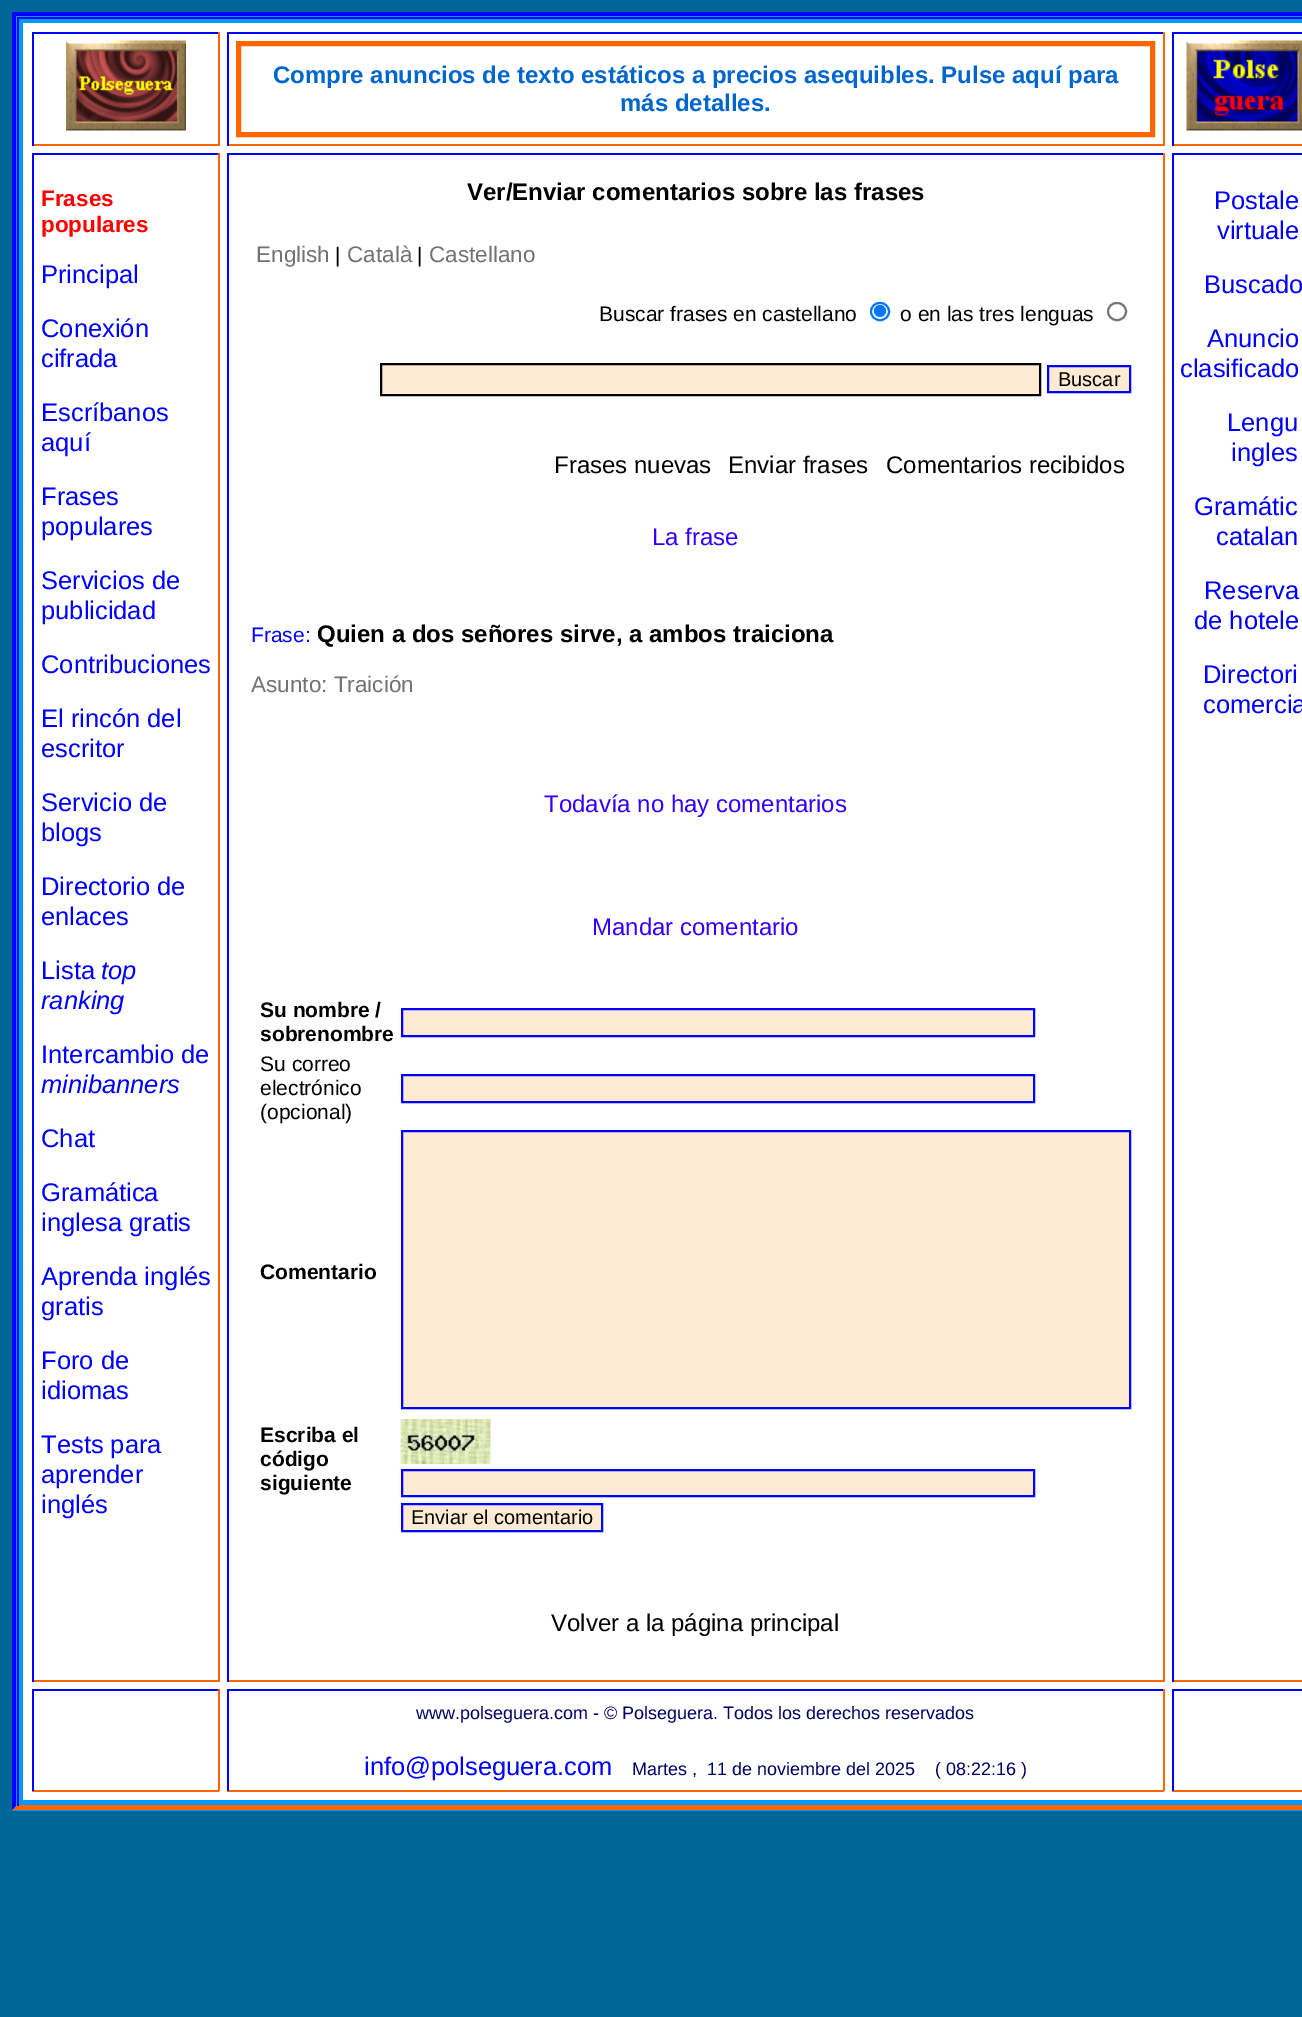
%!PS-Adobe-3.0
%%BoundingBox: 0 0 1302 2017
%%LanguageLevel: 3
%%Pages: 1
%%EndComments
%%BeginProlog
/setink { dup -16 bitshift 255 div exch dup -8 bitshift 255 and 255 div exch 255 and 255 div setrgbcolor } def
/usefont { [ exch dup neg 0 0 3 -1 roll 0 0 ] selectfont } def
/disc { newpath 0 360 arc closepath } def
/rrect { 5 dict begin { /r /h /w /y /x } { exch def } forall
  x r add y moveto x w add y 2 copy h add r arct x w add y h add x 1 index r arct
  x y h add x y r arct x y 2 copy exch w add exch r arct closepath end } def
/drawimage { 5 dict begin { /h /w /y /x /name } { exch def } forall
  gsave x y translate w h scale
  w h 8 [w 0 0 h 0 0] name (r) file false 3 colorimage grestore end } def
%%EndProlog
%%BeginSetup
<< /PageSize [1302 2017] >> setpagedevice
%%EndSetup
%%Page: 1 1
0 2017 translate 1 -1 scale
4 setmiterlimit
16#006699 setink
0 0 1302 2017 rectfill
16#0099FF setink
12 12 1290 1799 rectfill
16#0000FF setink
12 12 moveto 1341 12 lineto 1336 16 lineto 16 16 lineto closepath fill
16#FF6600 setink
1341 1810 moveto 12 1810 lineto 16 1806 lineto 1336 1806 lineto closepath fill
16#0000FF setink
12 1810 moveto 12 12 lineto 16 16 lineto 16 1806 lineto closepath fill
[
    [17 17 1285 2 16#0000FF]
    [17 1805 1285 1 16#FF6600]
    [17 17 2 1789 16#0000FF]
    [23 23 1279 1777 16#FFFFFF]
    [32 32 187 2 16#0000FF]
    [218 32 2 114 16#FF6600]
    [32 144 187 2 16#FF6600]
    [32 32 2 114 16#0000FF]
] { aload pop setink rectfill } forall
(img1.raw) 66 40 120 91 drawimage
[
    [227 32 937 2 16#0000FF]
    [1163 32 2 114 16#FF6600]
    [227 144 937 2 16#FF6600]
    [227 32 2 114 16#0000FF]
] { aload pop setink rectfill } forall
16#FF6600 setink
3 setlinewidth
237.5 42.5 916 93 rectstroke
2 setlinewidth
240 45 911 88 rectstroke
/LiberationSans-Bold 24 usefont
16#0066CC setink
273 83 moveto (Compre anuncios de texto estáticos a precios asequibles. Pulse aquí para) show
620 111 moveto (más detalles.) show
[
    [1172 32 130 2 16#0000FF]
    [1172 144 130 2 16#FF6600]
    [1172 32 2 114 16#0000FF]
] { aload pop setink rectfill } forall
(img2.raw) 1186 40 116 91 drawimage
[
    [32 153 187 2 16#0000FF]
    [218 153 2 1529 16#FF6600]
    [32 1680 187 2 16#FF6600]
    [32 153 2 1529 16#0000FF]
] { aload pop setink rectfill } forall
/LiberationSans-Bold 22.5 usefont
16#FF0000 setink
41 206 moveto (Frases) show
41 232 moveto (populares) show
/LiberationSans-Regular 25.5 usefont
16#0000FF setink
[
    [(Principal) 41 283]
    [(Conexión) 41 337]
    [(cifrada) 41 367]
    [(Escríbanos) 41 421]
    [(aquí) 41 451]
    [(Frases) 41 505]
    [(populares) 41 535]
    [(Servicios de) 41 589]
    [(publicidad) 41 619]
    [(Contribuciones) 41 673]
    [(El rincón del) 41 727]
    [(escritor) 41 757]
    [(Servicio de) 41 811]
    [(blogs) 41 841]
    [(Directorio de) 41 895]
    [(enlaces) 41 925]
    [(Lista) 41 979]
] { aload pop moveto show } forall
/LiberationSans-Italic 25.5 usefont
101 979 moveto (top) show
41 1009 moveto (ranking) show
/LiberationSans-Regular 25.5 usefont
41 1063 moveto (Intercambio de) show
/LiberationSans-Italic 25.5 usefont
41 1093 moveto (minibanners) show
/LiberationSans-Regular 25.5 usefont
[
    [(Chat) 41 1147]
    [(Gramática) 41 1201]
    [(inglesa gratis) 41 1231]
    [(Aprenda inglés) 41 1285]
    [(gratis) 41 1315]
    [(Foro de) 41 1369]
    [(idiomas) 41 1399]
    [(Tests para) 41 1453]
    [(aprender) 41 1483]
    [(inglés) 41 1513]
] { aload pop moveto show } forall
[
    [227 153 937 2 16#0000FF]
    [1163 153 2 1529 16#FF6600]
    [227 1680 937 2 16#FF6600]
    [227 153 2 1529 16#0000FF]
] { aload pop setink rectfill } forall
/LiberationSans-Bold 24 usefont
16#000000 setink
467 200 moveto (Ver/Enviar comentarios sobre las frases) show
/LiberationSans-Regular 22.5 usefont
16#727272 setink
256 262 moveto (English) show
/LiberationSans-Regular 21 usefont
16#000000 setink
335 262 moveto (|) show
/LiberationSans-Regular 22.5 usefont
16#727272 setink
347 262 moveto (Català) show
/LiberationSans-Regular 21 usefont
16#000000 setink
417 262 moveto (|) show
/LiberationSans-Regular 22.5 usefont
16#727272 setink
429 262 moveto (Castellano) show
/LiberationSans-Regular 21 usefont
16#000000 setink
599 321 moveto (Buscar frases en castellano) show
16#0075FF setink
871 303 18 17 8.5 rrect stroke
880 311 6 disc fill
16#000000 setink
900 321 moveto (o en las tres lenguas) show
16#767676 setink
1108 303 18 17 8.5 rrect stroke
16#FFEAD4 setink
381 364 moveto 1040 364 lineto 1040 395 lineto 381 395 lineto closepath gsave fill grestore
16#000000 setink
stroke
16#FFEAD4 setink
1048 366 moveto 1130 366 lineto 1130 392 lineto 1048 392 lineto closepath gsave fill grestore
16#0000FF setink
stroke
/LiberationSans-Regular 20 usefont
16#000000 setink
1058 386 moveto (Buscar) show
/LiberationSans-Regular 24 usefont
[
    [(Frases nuevas) 554 473]
    [(Enviar frases) 728 473]
    [(Comentarios recibidos) 886 473]
] { aload pop moveto show } forall
16#3300FF setink
652 545 moveto (La frase) show
/LiberationSans-Regular 21 usefont
16#0000FF setink
251 642 moveto (Frase:) show
/LiberationSans-Bold 24 usefont
16#000000 setink
317 642 moveto (Quien a dos señores sirve, a ambos traiciona) show
/LiberationSans-Regular 22.5 usefont
16#727272 setink
251 692 moveto (Asunto: Traición) show
/LiberationSans-Regular 24 usefont
16#3300FF setink
544 812 moveto (Todavía no hay comentarios) show
592 935 moveto (Mandar comentario) show
/LiberationSans-Bold 21 usefont
16#000000 setink
260 1017 moveto (Su nombre /) show
260 1041 moveto (sobrenombre) show
16#FFEAD4 setink
402 1009 moveto 1034 1009 lineto 1034 1036 lineto 402 1036 lineto closepath gsave fill grestore
16#0000FF setink
stroke
/LiberationSans-Regular 21 usefont
16#000000 setink
[
    [(Su correo) 260 1071]
    [(electrónico) 260 1095]
    [(\(opcional\)) 260 1119]
] { aload pop moveto show } forall
16#FFEAD4 setink
402 1075 moveto 1034 1075 lineto 1034 1102 lineto 402 1102 lineto closepath gsave fill grestore
16#0000FF setink
stroke
/LiberationSans-Bold 21 usefont
16#000000 setink
260 1279 moveto (Comentario) show
16#FFEAD4 setink
402 1131 moveto 1130 1131 lineto 1130 1408 lineto 402 1408 lineto closepath gsave fill grestore
16#0000FF setink
stroke
16#000000 setink
[
    [(Escriba el) 260 1442]
    [(código) 260 1466]
    [(siguiente) 260 1490]
] { aload pop moveto show } forall
(img3.raw) 400 1419 91 45 drawimage
16#FFEAD4 setink
402 1470 moveto 1034 1470 lineto 1034 1496 lineto 402 1496 lineto closepath gsave fill grestore
16#0000FF setink
stroke
16#FFEAD4 setink
402 1504 moveto 602 1504 lineto 602 1531 lineto 402 1531 lineto closepath gsave fill grestore
16#0000FF setink
stroke
/LiberationSans-Regular 20 usefont
16#000000 setink
411 1524 moveto (Enviar el comentario) show
/LiberationSans-Regular 24 usefont
551 1631 moveto (Volver a la página principal) show
[
    [1172 153 130 2 16#0000FF]
    [1172 1680 130 2 16#FF6600]
    [1172 153 2 1529 16#0000FF]
] { aload pop setink rectfill } forall
/LiberationSans-Regular 25.5 usefont
[
    [(Postale) 1214 209]
    [(virtuale) 1217 239]
    [(Buscado) 1204 293]
    [(Anuncio) 1207 347]
    [(clasificado) 1180 377]
    [(Lengu) 1227 431]
    [(ingles) 1231 461]
    [(Gramátic) 1194 515]
    [(catalan) 1216 545]
    [(Reserva) 1204 599]
    [(de hotele) 1194 629]
    [(Directori) 1203 683]
    [(comercia) 1203 713]
] { aload pop moveto show } forall
[
    [32 1689 187 2 16#0000FF]
    [218 1689 2 102 16#FF6600]
    [32 1790 187 2 16#FF6600]
    [32 1689 2 102 16#0000FF]
    [227 1689 937 2 16#0000FF]
    [1163 1689 2 102 16#FF6600]
    [227 1790 937 2 16#FF6600]
    [227 1689 2 102 16#0000FF]
] { aload pop setink rectfill } forall
/LiberationSans-Regular 18 usefont
16#000066 setink
416 1719 moveto (www.polseguera.com - © Polseguera. Todos los derechos reservados) show
/LiberationSans-Regular 25.5 usefont
16#0000FF setink
364 1775 moveto (info@polseguera.com) show
/LiberationSans-Regular 18 usefont
16#000066 setink
632 1775 moveto (Martes ,  11 de noviembre del 2025) show
935 1775 moveto (\( 08:22:16 \)) show
[
    [1172 1689 130 2 16#0000FF]
    [1172 1790 130 2 16#FF6600]
    [1172 1689 2 102 16#0000FF]
] { aload pop setink rectfill } forall
showpage
%%EOF
